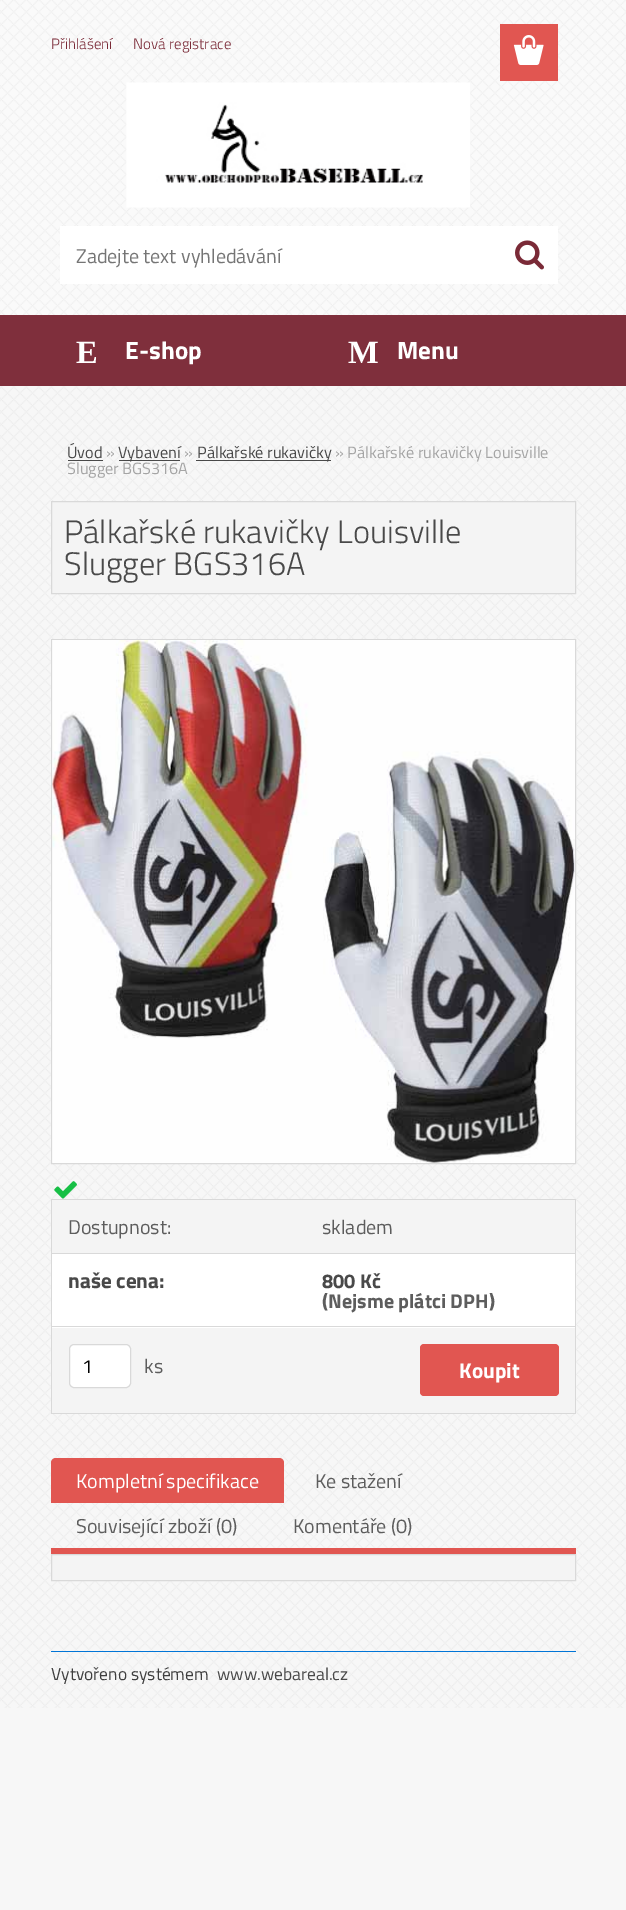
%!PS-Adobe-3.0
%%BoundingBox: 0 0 626 1910
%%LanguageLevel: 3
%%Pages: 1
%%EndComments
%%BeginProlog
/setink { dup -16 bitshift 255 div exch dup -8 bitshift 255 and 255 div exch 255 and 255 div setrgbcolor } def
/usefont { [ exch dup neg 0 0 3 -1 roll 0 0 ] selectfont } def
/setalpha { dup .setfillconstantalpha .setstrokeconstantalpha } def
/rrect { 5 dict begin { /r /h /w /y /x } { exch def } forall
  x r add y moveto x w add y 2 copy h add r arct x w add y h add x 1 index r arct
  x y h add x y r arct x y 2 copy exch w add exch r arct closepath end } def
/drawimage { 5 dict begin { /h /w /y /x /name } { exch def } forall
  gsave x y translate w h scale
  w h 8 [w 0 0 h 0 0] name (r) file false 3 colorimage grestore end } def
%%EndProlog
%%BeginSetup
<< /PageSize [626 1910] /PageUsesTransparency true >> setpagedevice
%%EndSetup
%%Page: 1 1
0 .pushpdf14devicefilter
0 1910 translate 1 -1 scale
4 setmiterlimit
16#F7F7F7 setink
0 0 626 1910 rectfill
(img1.raw) 0 386 626 1322 drawimage
16#FAFAFA setink
0 0 626 315 rectfill
(img5.raw) 0 0 626 315 drawimage
/TitilliumWeb-Light 15 usefont
16#7A2A37 setink
51 49 moveto (Přihlášení) show
133 49 moveto (Nová registrace) show
16#E15651 setink
500 24 58 57 rectfill
(img2.raw) 513 35 31 30 drawimage
16#7F2F3C setink
0 315 626 71 rectfill
/LiberationSerif-Bold 32.5 usefont
16#FFFFFF setink
76 363 moveto (E) show
/TitilliumWeb-Bold 25 usefont
125 359 moveto (E-shop) show
/LiberationSerif-Bold 32.5 usefont
348 363 moveto (M) show
/TitilliumWeb-Bold 25 usefont
397 359 moveto (Menu) show
/TitilliumWeb-Regular 16.25 usefont
16#494949 setink
67 458 moveto (Úvod) show
0.7 setalpha
16#000000 setink
68 460 35 1 rectfill
1 setalpha
16#A5A5A5 setink
106 458 moveto (») show
0.7 setalpha
16#000000 setink
119 460 61 1 rectfill
1 setalpha
16#494949 setink
118 458 moveto (Vybavení) show
16#A5A5A5 setink
184 458 moveto (») show
0.7 setalpha
16#000000 setink
196 460 135 1 rectfill
1 setalpha
16#494949 setink
197 458 moveto (Pálkařské rukavičky) show
16#A5A5A5 setink
335 458 moveto (» Pálkařské rukavičky Louisville) show
67 474 moveto (Slugger BGS316A) show
16#F4F4F4 setink
51.5 501.5 moveto 575.5 501.5 lineto 575.5 593.5 lineto 51.5 593.5 lineto closepath gsave fill grestore
16#D9D9D9 setink
stroke
/TitilliumWeb-Light 32.5 usefont
16#494949 setink
64 543 moveto (Pálkařské rukavičky Louisville) show
64 575 moveto (Slugger BGS316A) show
16#F4F4F4 setink
52 640 1 523 rectfill
16#D9D9D9 setink
51.5 639.5 524 524 rectstroke
16#FFFFFF setink
53 1162 522 1 rectfill
(img3.raw) 52 640 523 523 drawimage
(img4.raw) 54 1181 23 18 drawimage
[
    [52 1254 523 74 16#FFFFFF]
    [51 1199 525 1 16#D9D9D9]
    [575 1199 1 215 16#D9D9D9]
    [51 1413 525 1 16#D9D9D9]
    [51 1199 1 215 16#D9D9D9]
    [52 1200 523 53 16#F4F4F4]
] { aload pop setink rectfill } forall
/TitilliumWeb-Regular 20 usefont
16#5D5D5D setink
68 1234 moveto (Dostupnost:) show
322 1234 moveto (skladem) show
16#D9D9D9 setink
51 1253 525 1 rectfill
/TitilliumWeb-Bold 21.25 usefont
16#494949 setink
68 1288 moveto (naše cena:) show
/TitilliumWeb-Bold 20 usefont
322 1288 moveto (800 Kč) show
16#5D5D5D setink
322 1308 moveto (\(Nejsme plátci DPH\)) show
16#F4F4F4 setink
52 1328 523 85 rectfill
16#D9D9D9 setink
51 1326 525 1 rectfill
16#FFFFFF setink
69.5 1344.5 61 43 4.5 rrect gsave fill grestore
16#D9D9D9 setink
stroke
/TitilliumWeb-Regular 19 usefont
16#000000 setink
82 1373 moveto (1) show
/TitilliumWeb-Regular 20 usefont
16#5D5D5D setink
144 1373 moveto (ks) show
16#E15651 setink
420 1344 139 52 4 rrect fill
/TitilliumWeb-Bold 21.25 usefont
16#FFFFFF setink
459 1378 moveto (Koupit) show
16#E15651 setink
51 1548 525 6 rectfill
56 1458 moveto 279 1458 lineto 282 1458 284 1460 284 1463 curveto 284 1503 lineto 51 1503 lineto 51 1463 lineto 51 1460 53 1458 56 1458 curveto closepath fill
/TitilliumWeb-Regular 20 usefont
16#FFFFFF setink
76 1488 moveto (Kompletní specifikace) show
16#5D5D5D setink
[
    [(Ke stažení) 315 1488]
    [(Související zboží \(0\)) 76 1533]
    [(Komentáře \(0\)) 293 1533]
] { aload pop moveto show } forall
16#F4F4F4 setink
51.5 1554.5 moveto 575.5 1554.5 lineto 575.5 1580.5 lineto 51.5 1580.5 lineto closepath gsave fill grestore
16#D9D9D9 setink
stroke
16#0175D7 setink
51 1651 525 1 rectfill
/TitilliumWeb-Regular 17.5 usefont
16#3F3F3F setink
51 1680 moveto (Vytvořeno systémem) show
16#494949 setink
217 1680 moveto (www.webareal.cz) show
(img6.raw) 126 82 344 126 drawimage
16#FFFFFF setink
60 226 498 58 rectfill
(img7.raw) 515 240 29 30 drawimage
/TitilliumWeb-Regular 20 usefont
16#757575 setink
76 263 moveto (Zadejte text vyhledávání) show
.poppdf14devicefilter showpage
%%EOF
